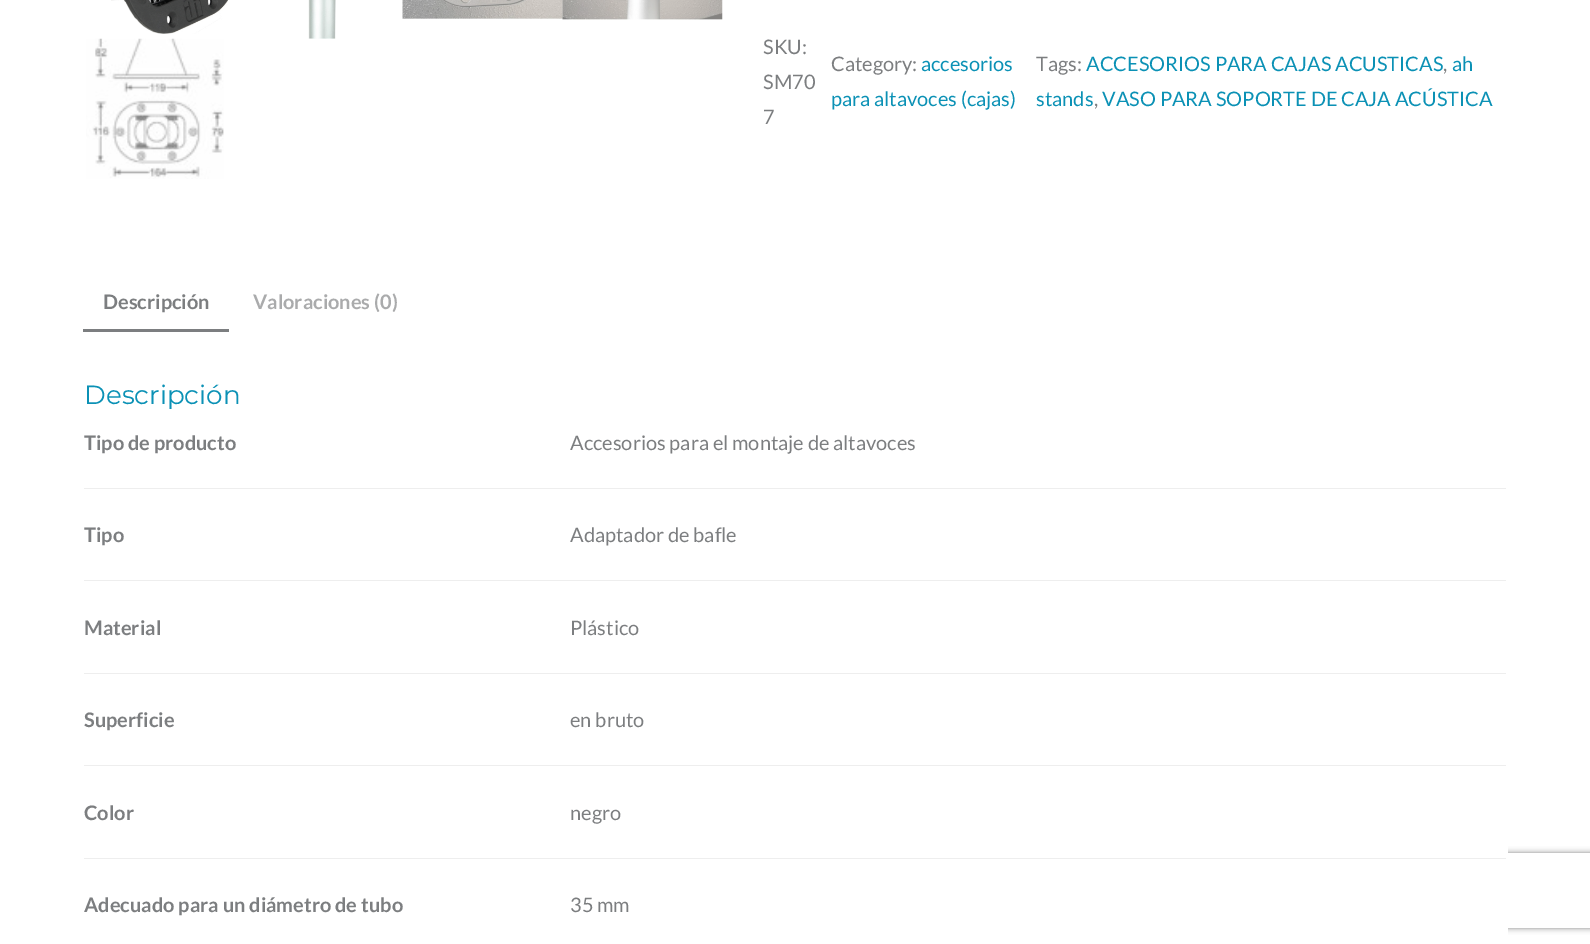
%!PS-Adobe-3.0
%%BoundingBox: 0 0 1590 944
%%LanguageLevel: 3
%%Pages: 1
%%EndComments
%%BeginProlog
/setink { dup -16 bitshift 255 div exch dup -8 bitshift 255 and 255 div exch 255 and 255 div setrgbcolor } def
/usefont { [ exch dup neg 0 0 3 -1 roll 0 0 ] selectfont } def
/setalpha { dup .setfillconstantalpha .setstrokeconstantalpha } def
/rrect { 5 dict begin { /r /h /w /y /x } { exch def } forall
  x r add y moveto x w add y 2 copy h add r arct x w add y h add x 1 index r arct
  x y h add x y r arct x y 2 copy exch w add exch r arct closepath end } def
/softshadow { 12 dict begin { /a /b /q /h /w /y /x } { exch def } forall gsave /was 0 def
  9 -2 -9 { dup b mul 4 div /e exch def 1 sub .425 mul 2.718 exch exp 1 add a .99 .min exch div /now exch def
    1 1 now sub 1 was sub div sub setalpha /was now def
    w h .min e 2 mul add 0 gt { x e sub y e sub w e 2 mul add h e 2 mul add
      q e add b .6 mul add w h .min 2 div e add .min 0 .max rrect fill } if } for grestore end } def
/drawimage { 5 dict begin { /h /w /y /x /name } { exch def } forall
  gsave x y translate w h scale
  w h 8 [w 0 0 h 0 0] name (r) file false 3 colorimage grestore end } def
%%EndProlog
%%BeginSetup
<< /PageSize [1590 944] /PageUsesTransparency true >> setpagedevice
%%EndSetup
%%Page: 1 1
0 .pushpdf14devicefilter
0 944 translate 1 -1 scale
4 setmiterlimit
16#FFFFFF setink
0 0 1590 944 rectfill
(img1.raw) 111 0 117 34 drawimage
(img2.raw) 308 0 28 39 drawimage
(img3.raw) 402 0 161 19 drawimage
(img4.raw) 562 0 161 20 drawimage
(img5.raw) 86 38 138 141 drawimage
/Lato-Regular 20 usefont
16#7C7E80 setink
[
    [(SKU:) 763 54]
    [(SM70) 763 89]
    [(7) 763 124]
    [(Category:) 831 71]
] { aload pop moveto show } forall
16#0B91B5 setink
921 71 moveto (accesorios) show
831 106 moveto (para altavoces \(cajas\)) show
16#7C7E80 setink
1036 71 moveto (Tags:) show
16#0B91B5 setink
1086 71 moveto (ACCESORIOS PARA CAJAS ACUSTICAS) show
16#7C7E80 setink
1443 71 moveto (,) show
16#0B91B5 setink
1452 71 moveto (ah) show
1036 106 moveto (stands) show
16#7C7E80 setink
1094 106 moveto (,) show
16#0B91B5 setink
1102 106 moveto (VASO PARA SOPORTE DE CAJA ACÚSTICA) show
16#7C7E80 setink
83 329 146 3 rectfill
/Lato-Bold 20 usefont
103 309 moveto (Descripción) show
16#AAABAC setink
253 309 moveto (Valoraciones \(0\)) show
gsave
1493 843 moveto 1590 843 lineto 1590 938 lineto 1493 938 lineto closepath 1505.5 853 moveto 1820.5 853 lineto 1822 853 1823 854 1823 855.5 curveto 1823 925.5 lineto 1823 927 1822 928 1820.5 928 curveto 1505.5 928 lineto 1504 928 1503 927 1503 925.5 curveto 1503 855.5 lineto 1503 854 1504 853 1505.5 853 curveto closepath eoclip newpath
16#808080 setink
1503 853 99 75 2.5 3 1 softshadow
grestore
16#FFFFFF setink
83 364 1425 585 5 rrect fill
/Montserrat-Regular 26.25 usefont
16#0B91B5 setink
84 404 moveto (Descripción) show
/Lato-Bold 20 usefont
16#7C7E80 setink
84 450 moveto (Tipo de producto) show
/Lato-Regular 20 usefont
570 450 moveto (Accesorios para el montaje de altavoces) show
16#EEEEEE setink
84 488 1422 1 rectfill
/Lato-Bold 20 usefont
16#7C7E80 setink
84 542 moveto (Tipo) show
/Lato-Regular 20 usefont
570 542 moveto (Adaptador de bafle) show
16#EEEEEE setink
84 580 1422 1 rectfill
/Lato-Bold 20 usefont
16#7C7E80 setink
84 635 moveto (Material) show
/Lato-Regular 20 usefont
570 635 moveto (Plástico) show
16#EEEEEE setink
84 673 1422 1 rectfill
/Lato-Bold 20 usefont
16#7C7E80 setink
84 727 moveto (Superficie) show
/Lato-Regular 20 usefont
570 727 moveto (en bruto) show
16#EEEEEE setink
84 765 1422 1 rectfill
/Lato-Bold 20 usefont
16#7C7E80 setink
84 820 moveto (Color) show
/Lato-Regular 20 usefont
570 820 moveto (negro) show
16#EEEEEE setink
84 858 1422 1 rectfill
/Lato-Bold 20 usefont
16#7C7E80 setink
84 912 moveto (Adecuado para un diámetro de tubo) show
/Lato-Regular 20 usefont
570 912 moveto (35 mm) show
.poppdf14devicefilter showpage
%%EOF
